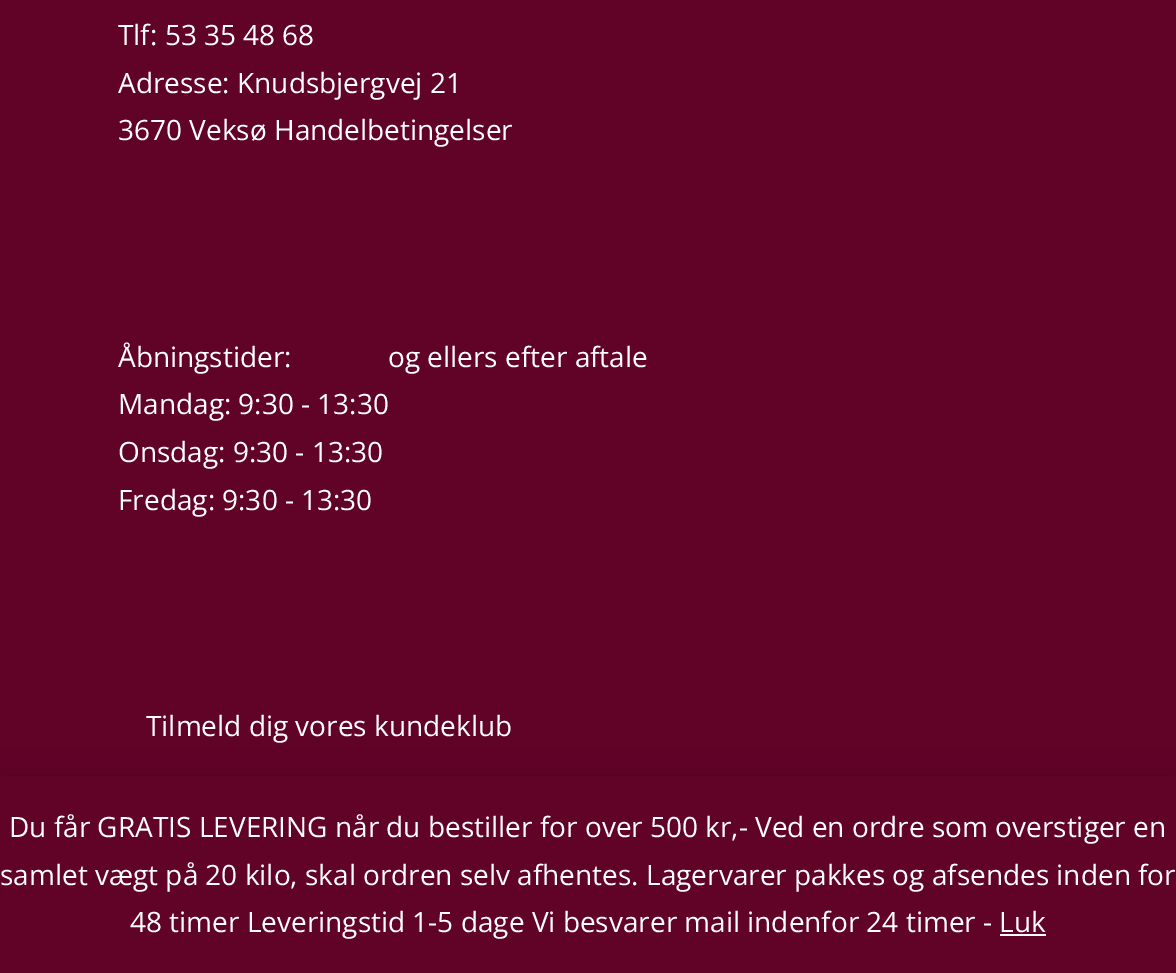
%!PS-Adobe-3.0
%%BoundingBox: 0 0 1176 973
%%LanguageLevel: 3
%%Pages: 1
%%EndComments
%%BeginProlog
/setink { dup -16 bitshift 255 div exch dup -8 bitshift 255 and 255 div exch 255 and 255 div setrgbcolor } def
/usefont { [ exch dup neg 0 0 3 -1 roll 0 0 ] selectfont } def
/setalpha { dup .setfillconstantalpha .setstrokeconstantalpha } def
/rrect { 5 dict begin { /r /h /w /y /x } { exch def } forall
  x r add y moveto x w add y 2 copy h add r arct x w add y h add x 1 index r arct
  x y h add x y r arct x y 2 copy exch w add exch r arct closepath end } def
/softshadow { 12 dict begin { /a /b /q /h /w /y /x } { exch def } forall gsave /was 0 def
  9 -2 -9 { dup b mul 4 div /e exch def 1 sub .425 mul 2.718 exch exp 1 add a .99 .min exch div /now exch def
    1 1 now sub 1 was sub div sub setalpha /was now def
    w h .min e 2 mul add 0 gt { x e sub y e sub w e 2 mul add h e 2 mul add
      q e add b .6 mul add w h .min 2 div e add .min 0 .max rrect fill } if } for grestore end } def
%%EndProlog
%%BeginSetup
<< /PageSize [1176 973] /PageUsesTransparency true >> setpagedevice
%%EndSetup
%%Page: 1 1
0 .pushpdf14devicefilter
0 973 translate 1 -1 scale
4 setmiterlimit
16#610227 setink
0 0 1176 973 rectfill
/OpenSans-Regular 28 usefont
16#FFFFFF setink
[
    [(Tlf: 53 35 48 68) 118 45]
    [(Adresse: Knudsbjergvej 21) 118 93]
    [(3670 Veksø Handelbetingelser) 118 140]
    [(Åbningstider:) 118 367]
    [(Mandag: 9:30 - 13:30) 118 414]
    [(Onsdag: 9:30 - 13:30) 118 462]
    [(Fredag: 9:30 - 13:30) 118 510]
    [(og ellers efter aftale) 388 367]
    [(Tilmeld dig vores kundeklub) 146 736]
] { aload pop moveto show } forall
16#000000 setink
0 778 1176 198 0 14 0.2 softshadow
16#610227 setink
0 776 1176 197 rectfill
16#FFFFFF setink
[
    [(Du får GRATIS LEVERING når du bestiller for over 500 kr,- Ved en ordre som overstiger en) 9 837]
    [(samlet vægt på 20 kilo, skal ordren selv afhentes. Lagervarer pakkes og afsendes inden for) 0 885]
    [(48 timer Leveringstid 1-5 dage Vi besvarer mail indenfor 24 timer -) 130 932]
    [(Luk) 999 932]
] { aload pop moveto show } forall
16#FCFBFE setink
1000 934 46 2 rectfill
.poppdf14devicefilter showpage
%%EOF
